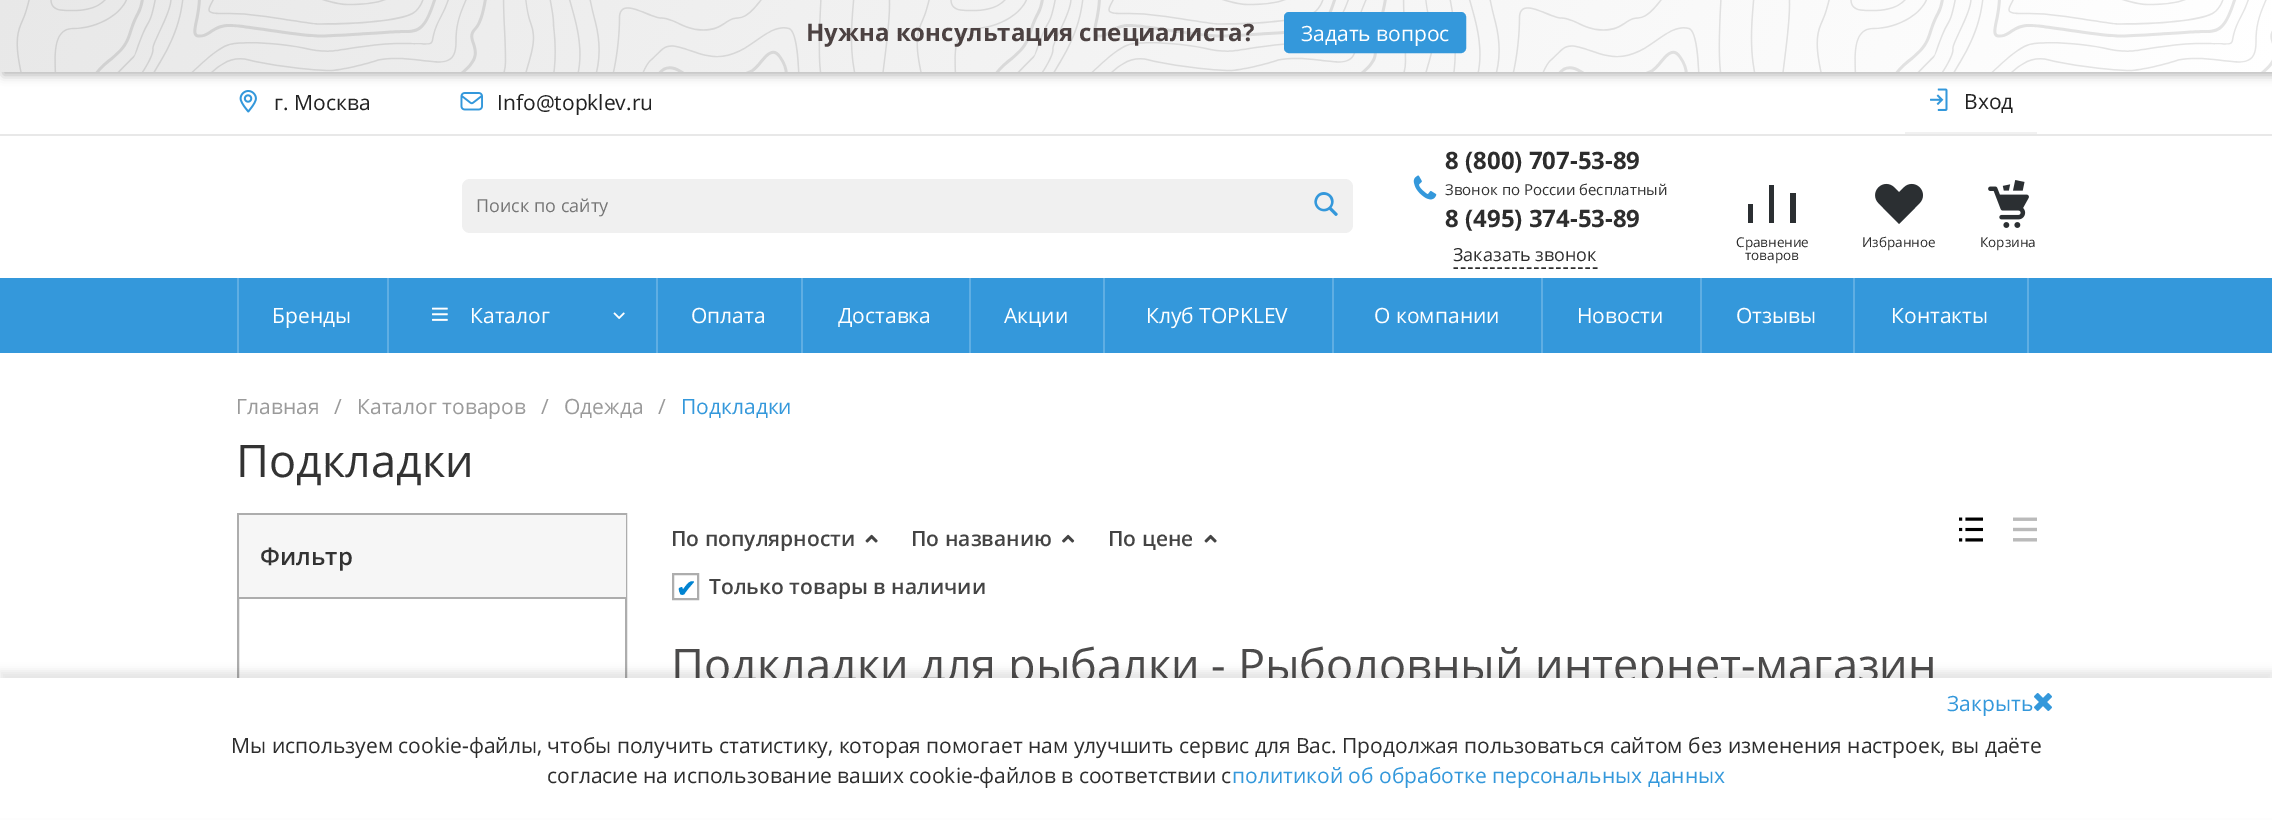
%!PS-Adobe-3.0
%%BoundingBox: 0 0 2272 820
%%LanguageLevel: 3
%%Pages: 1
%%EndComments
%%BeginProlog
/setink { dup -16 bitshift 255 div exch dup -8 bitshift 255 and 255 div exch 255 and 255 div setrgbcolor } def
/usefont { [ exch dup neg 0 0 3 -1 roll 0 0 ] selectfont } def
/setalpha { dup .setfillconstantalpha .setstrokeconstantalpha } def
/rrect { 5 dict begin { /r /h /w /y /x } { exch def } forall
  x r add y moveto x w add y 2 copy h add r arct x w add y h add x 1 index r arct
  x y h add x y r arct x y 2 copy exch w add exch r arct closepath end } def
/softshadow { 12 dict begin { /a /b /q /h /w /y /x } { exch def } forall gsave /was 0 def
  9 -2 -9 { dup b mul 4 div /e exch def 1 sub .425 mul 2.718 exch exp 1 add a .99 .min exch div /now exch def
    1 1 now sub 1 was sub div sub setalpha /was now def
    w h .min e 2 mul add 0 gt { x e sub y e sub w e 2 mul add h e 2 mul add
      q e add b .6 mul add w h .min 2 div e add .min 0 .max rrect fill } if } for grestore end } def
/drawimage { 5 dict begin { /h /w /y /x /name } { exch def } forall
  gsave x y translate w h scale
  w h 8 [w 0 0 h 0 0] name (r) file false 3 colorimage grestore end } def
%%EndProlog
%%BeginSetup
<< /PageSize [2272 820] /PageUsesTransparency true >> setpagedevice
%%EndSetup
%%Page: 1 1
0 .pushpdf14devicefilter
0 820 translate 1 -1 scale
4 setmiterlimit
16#FFFFFF setink
0 0 2272 820 rectfill
16#000000 setink
3 3 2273 72 0 5 0.3 softshadow
(img1.raw) 0 0 2272 72 drawimage
/OpenSans-Bold 24 usefont
16#4C4242 setink
806 41 moveto (Нужна консультация специалиста?) show
16#3498DB setink
1285 13 180 39 4 rrect gsave fill grestore
2 setlinewidth
stroke
/OpenSans-Regular 21 usefont
16#FFFFFF setink
1301 41 moveto (Задать вопрос) show
16#E8E8E8 setink
0 134 2272 2 rectfill
(img2.raw) 239 90 18 23 drawimage
16#222222 setink
274 110 moveto (г. Москва) show
(img3.raw) 460 92 23 19 drawimage
497 110 moveto (Info@topklev.ru) show
16#F1F1F1 setink
1905 132 132 2 rectfill
(img4.raw) 1930 88 18 23 drawimage
16#222222 setink
1964 109 moveto (Вход) show
16#F0F0F0 setink
462 179 891 54 8 rrect fill
/OpenSans-Regular 18 usefont
16#757575 setink
476 212 moveto (Поиск по сайту) show
(img5.raw) 1314 192 24 24 drawimage
(img6.raw) 1413 175 24 25 drawimage
/OpenSans-Bold 24 usefont
16#2D2D2D setink
1445 169 moveto (8 \(800\) 707-53-89) show
/OpenSans-Regular 15 usefont
16#333333 setink
1445 195 moveto (Звонок по России бесплатный) show
/OpenSans-Bold 24 usefont
16#2D2D2D setink
1445 227 moveto (8 \(495\) 374-53-89) show
1.5 setlinewidth
[4.5 2.83] 0 setdash
1453.5 268 moveto 1597.5 268 lineto stroke
/OpenSans-Regular 18 usefont
1453 261 moveto (Заказать звонок) show
16#2B2F32 setink
1748 223 moveto 1753 223 lineto 1753 204 lineto 1748 204 lineto closepath 1769 223 moveto 1774 223 lineto 1774 185 lineto 1769 185 lineto closepath 1790 193 moveto 1796 193 lineto 1796 223 lineto 1790 223 lineto closepath fill
/OpenSans-Regular 13.5 usefont
16#2D2D2D setink
1736 247 moveto (Cравнение) show
1745 260 moveto (товаров) show
(img7.raw) 1875 183 48 41 drawimage
1862 247 moveto (Избранное) show
(img8.raw) 1988 180 41 48 drawimage
1980 247 moveto (Корзина) show
[
    [0 278 2272 75 16#3498DB]
    [387 278 2 75 16#5FAEE3]
    [237 278 2 75 16#5FAEE3]
] { aload pop setink rectfill } forall
/OpenSans-Regular 21 usefont
16#FFFFFF setink
272 323 moveto (Бренды) show
16#5FAEE3 setink
656 278 2 75 rectfill
(img9.raw) 432 307 16 14 drawimage
16#FFFFFF setink
470 323 moveto (Каталог) show
(img10.raw) 613 312 12 7 drawimage
16#5FAEE3 setink
801 278 2 75 rectfill
16#FFFFFF setink
691 323 moveto (Оплата) show
16#5FAEE3 setink
969 278 2 75 rectfill
16#FFFFFF setink
838 323 moveto (Доставка) show
16#5FAEE3 setink
1103 278 2 75 rectfill
16#FFFFFF setink
1004 323 moveto (Акции) show
16#5FAEE3 setink
1332 278 2 75 rectfill
16#FFFFFF setink
1146 323 moveto (Клуб TOPKLEV) show
16#5FAEE3 setink
1541 278 2 75 rectfill
16#FFFFFF setink
1374 323 moveto (О компании) show
16#5FAEE3 setink
1700 278 2 75 rectfill
16#FFFFFF setink
1577 323 moveto (Новости) show
16#5FAEE3 setink
1853 278 2 75 rectfill
16#FFFFFF setink
1736 323 moveto (Отзывы) show
16#5FAEE3 setink
2027 278 2 75 rectfill
16#FFFFFF setink
1891 323 moveto (Контакты) show
16#9A9A9A setink
[
    [(Главная) 236 414]
    [(/) 334 414]
    [(Каталог товаров) 357 414]
    [(/) 541 414]
    [(Одежда) 564 414]
    [(/) 658 414]
] { aload pop moveto show } forall
16#3498DB setink
681 414 moveto (Подкладки) show
/OpenSans-Regular 45 usefont
16#333333 setink
236 477 moveto (Подкладки) show
16#ADADAD setink
2 setlinewidth
[] 0 setdash
238 514 388 286 rectstroke
16#F6F6F6 setink
239 515 387 82 rectfill
16#ADADAD setink
239 597 387 2 rectfill
/OpenSans-SemiBold 24 usefont
16#333333 setink
260 565 moveto (Фильтр) show
/OpenSans-SemiBold 21 usefont
16#444444 setink
671 546 moveto (По популярности) show
(img11.raw) 865 534 13 9 drawimage
911 546 moveto (По названию) show
(img12.raw) 1062 534 13 9 drawimage
1108 546 moveto (По цене) show
(img11.raw) 1204 534 13 9 drawimage
(img13.raw) 1959 517 24 25 drawimage
(img14.raw) 2013 517 24 25 drawimage
16#ADADAD setink
673 574 25 25 rectstroke
16#444444 setink
709 594 moveto (Только товары в наличии) show
/DejaVuSans-Bold 24 usefont
16#0083D1 setink
676 597 moveto (✔) show
/OpenSans-Regular 45 usefont
16#4C4B4B setink
671 681 moveto (Подкладки для рыбалки - Рыболовный интернет-магазин) show
16#000000 setink
0 671 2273 142 0 4 0.1 softshadow
16#FFFFFF setink
0 678 2272 140 rectfill
/OpenSans-Regular 21 usefont
16#3498DB setink
1947 711 moveto (Закрыть) show
(img15.raw) 2034 693 18 18 drawimage
16#2D2D2D setink
231 753 moveto (Мы используем cookie-файлы, чтобы получить статистику, которая помогает нам улучшить сервис для Вас. Продолжая пользоваться сайтом без изменения настроек, вы даёте) show
547 783 moveto (согласие на использование ваших cookie-файлов в соответствии с) show
16#3498DB setink
1232 783 moveto (политикой об обработке персональных данных) show
.poppdf14devicefilter showpage
%%EOF
